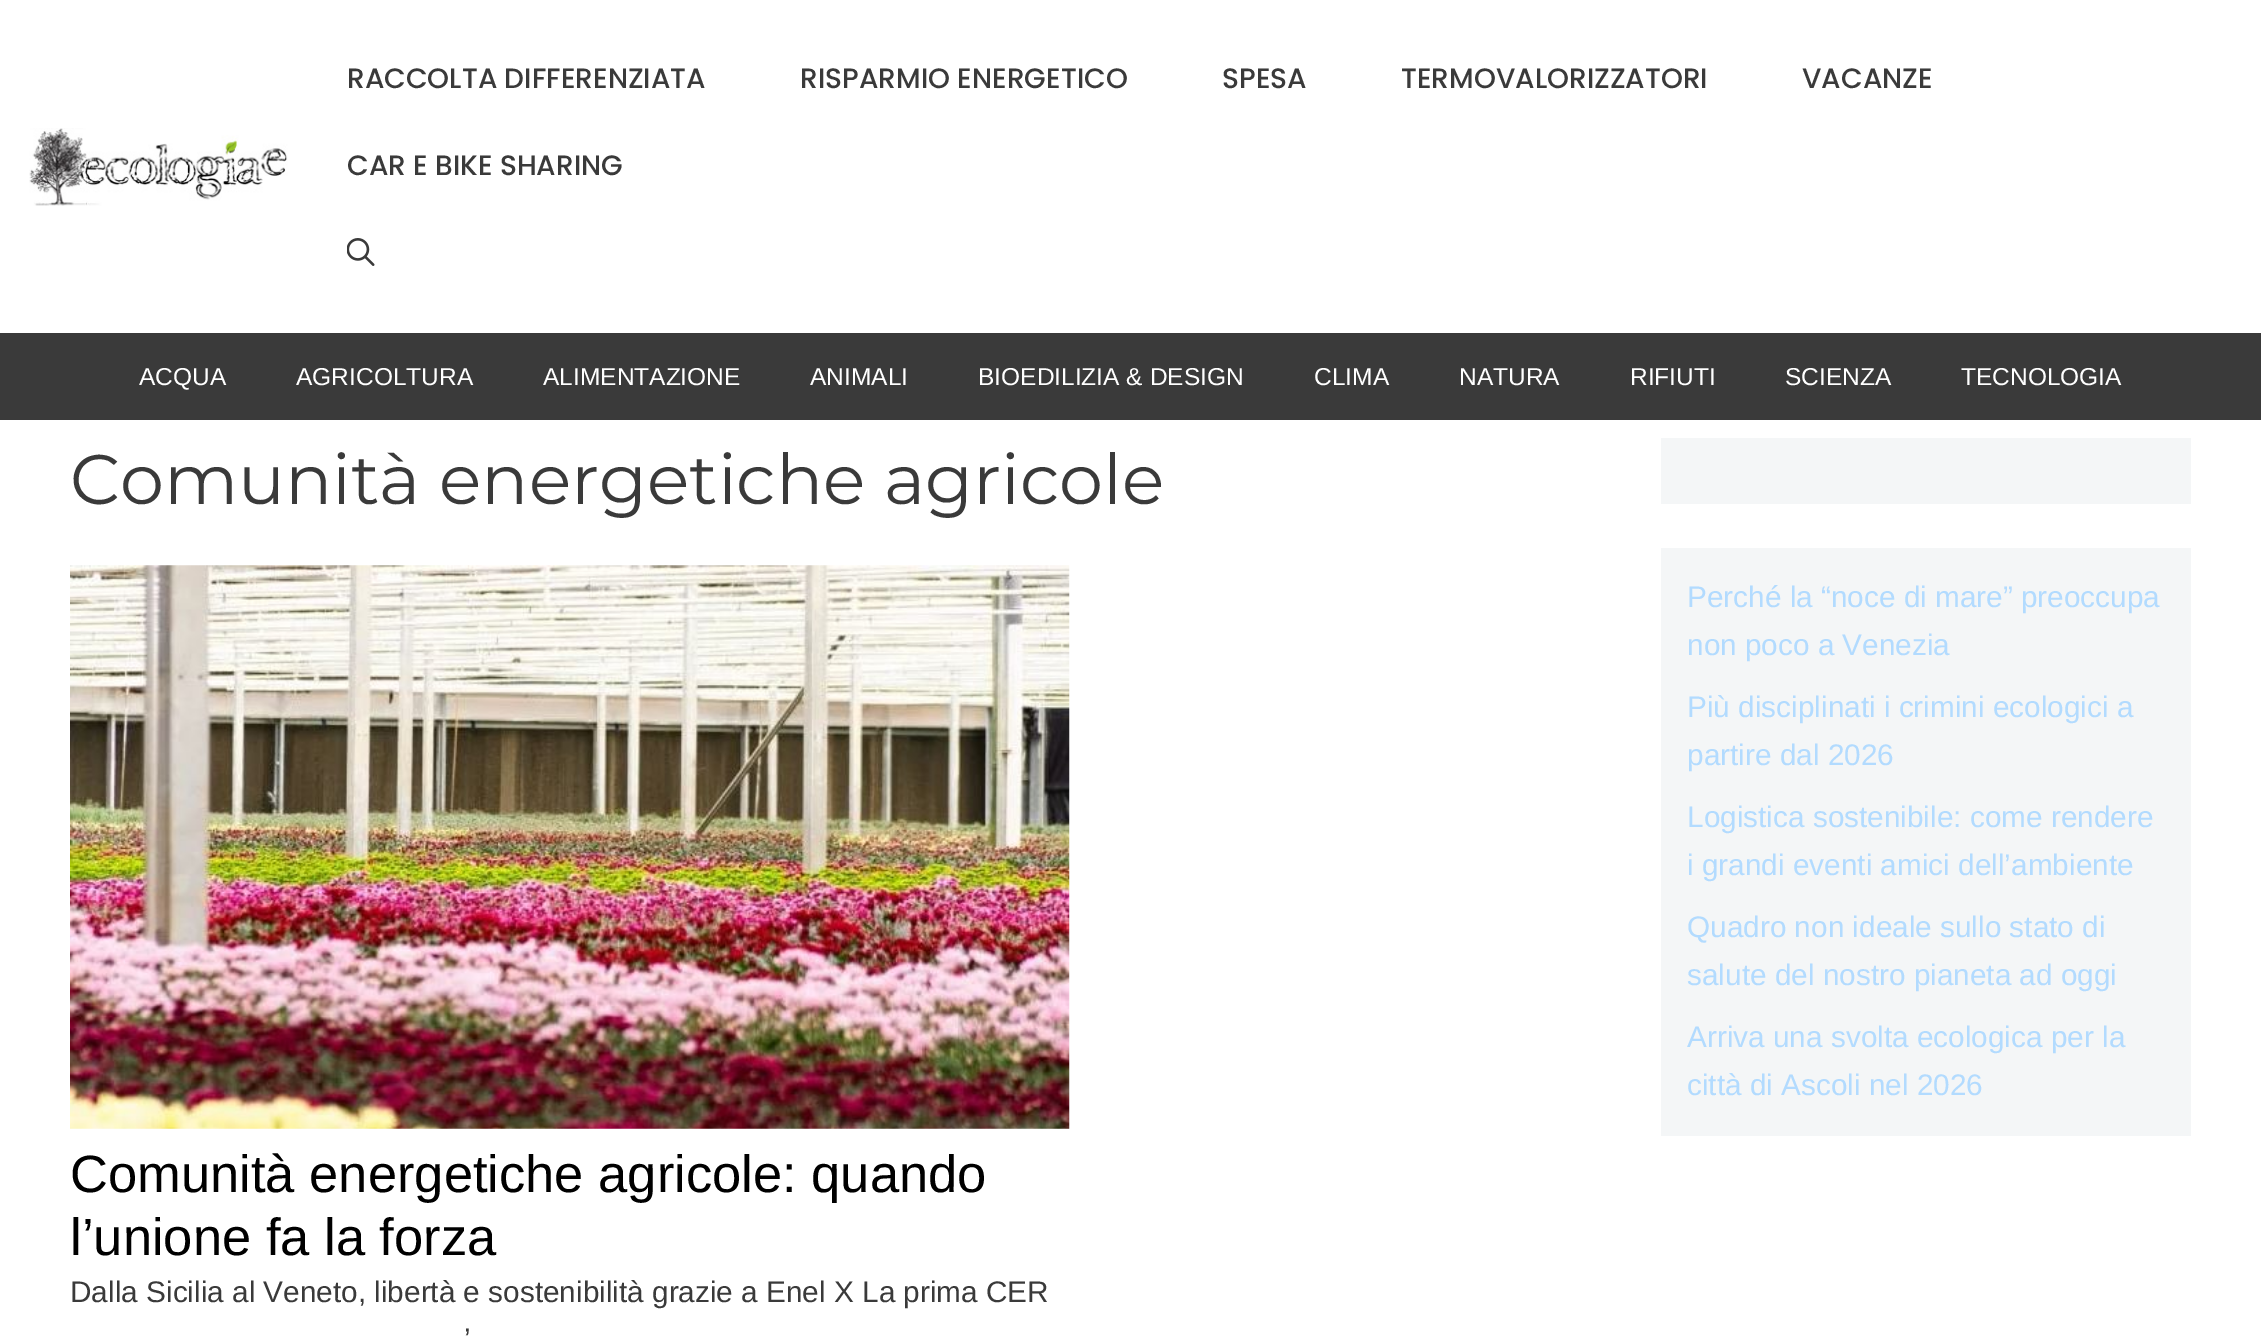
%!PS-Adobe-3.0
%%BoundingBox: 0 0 2261 1343
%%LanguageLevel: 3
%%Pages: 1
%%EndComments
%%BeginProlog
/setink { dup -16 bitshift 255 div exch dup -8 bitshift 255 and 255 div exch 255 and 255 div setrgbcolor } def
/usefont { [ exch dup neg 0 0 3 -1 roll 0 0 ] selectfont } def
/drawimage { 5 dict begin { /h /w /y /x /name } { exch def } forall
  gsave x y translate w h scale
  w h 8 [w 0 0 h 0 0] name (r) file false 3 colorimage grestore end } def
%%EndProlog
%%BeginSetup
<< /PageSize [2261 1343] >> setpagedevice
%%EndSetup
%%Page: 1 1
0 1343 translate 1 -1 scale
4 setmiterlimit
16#3A3A3A setink
0 0 2261 1343 rectfill
16#FFFFFF setink
0 0 2261 333 rectfill
(img1.raw) 29 128 259 78 drawimage
/Poppins-Medium 28 usefont
16#3A3A3A setink
[
    [(RACCOLTA DIFFERENZIATA) 347 88]
    [(RISPARMIO ENERGETICO) 800 88]
    [(SPESA) 1222 88]
    [(TERMOVALORIZZATORI) 1401 88]
    [(VACANZE) 1802 88]
    [(CAR E BIKE SHARING) 347 175]
] { aload pop moveto show } forall
(img2.raw) 347 238 28 28 drawimage
/LiberationSans-Regular 24.5 usefont
16#FFFFFF setink
[
    [(ACQUA) 139 385]
    [(AGRICOLTURA) 296 385]
    [(ALIMENTAZIONE) 543 385]
    [(ANIMALI) 810 385]
    [(BIOEDILIZIA & DESIGN) 978 385]
    [(CLIMA) 1314 385]
    [(NATURA) 1459 385]
    [(RIFIUTI) 1630 385]
    [(SCIENZA) 1785 385]
    [(TECNOLOGIA) 1961 385]
] { aload pop moveto show } forall
0 420 2261 923 rectfill
/Montserrat-Regular 70 usefont
16#3A3A3A setink
70 504 moveto (Comunità energetiche agricole) show
(img3.raw) 70 565 1000 564 drawimage
/LiberationSans-Regular 52.5 usefont
16#000000 setink
70 1192 moveto (Comunità energetiche agricole: quando) show
70 1255 moveto (l’unione fa la forza) show
/LiberationSans-Regular 29.75 usefont
16#3A3A3A setink
70 1302 moveto (Dalla Sicilia al Veneto, libertà e sostenibilità grazie a Enel X La prima CER) show
464 1349 moveto (’) show
16#F4F6F7 setink
1661 438 530 66 rectfill
1661 548 530 588 rectfill
16#B2DBFF setink
[
    [(Perché la “noce di mare” preoccupa) 1687 607]
    [(non poco a Venezia) 1687 655]
    [(Più disciplinati i crimini ecologici a) 1687 717]
    [(partire dal 2026) 1687 765]
    [(Logistica sostenibile: come rendere) 1687 827]
    [(i grandi eventi amici dell’ambiente) 1687 875]
    [(Quadro non ideale sullo stato di) 1687 937]
    [(salute del nostro pianeta ad oggi) 1687 985]
    [(Arriva una svolta ecologica per la) 1687 1047]
    [(città di Ascoli nel 2026) 1687 1095]
] { aload pop moveto show } forall
showpage
%%EOF
